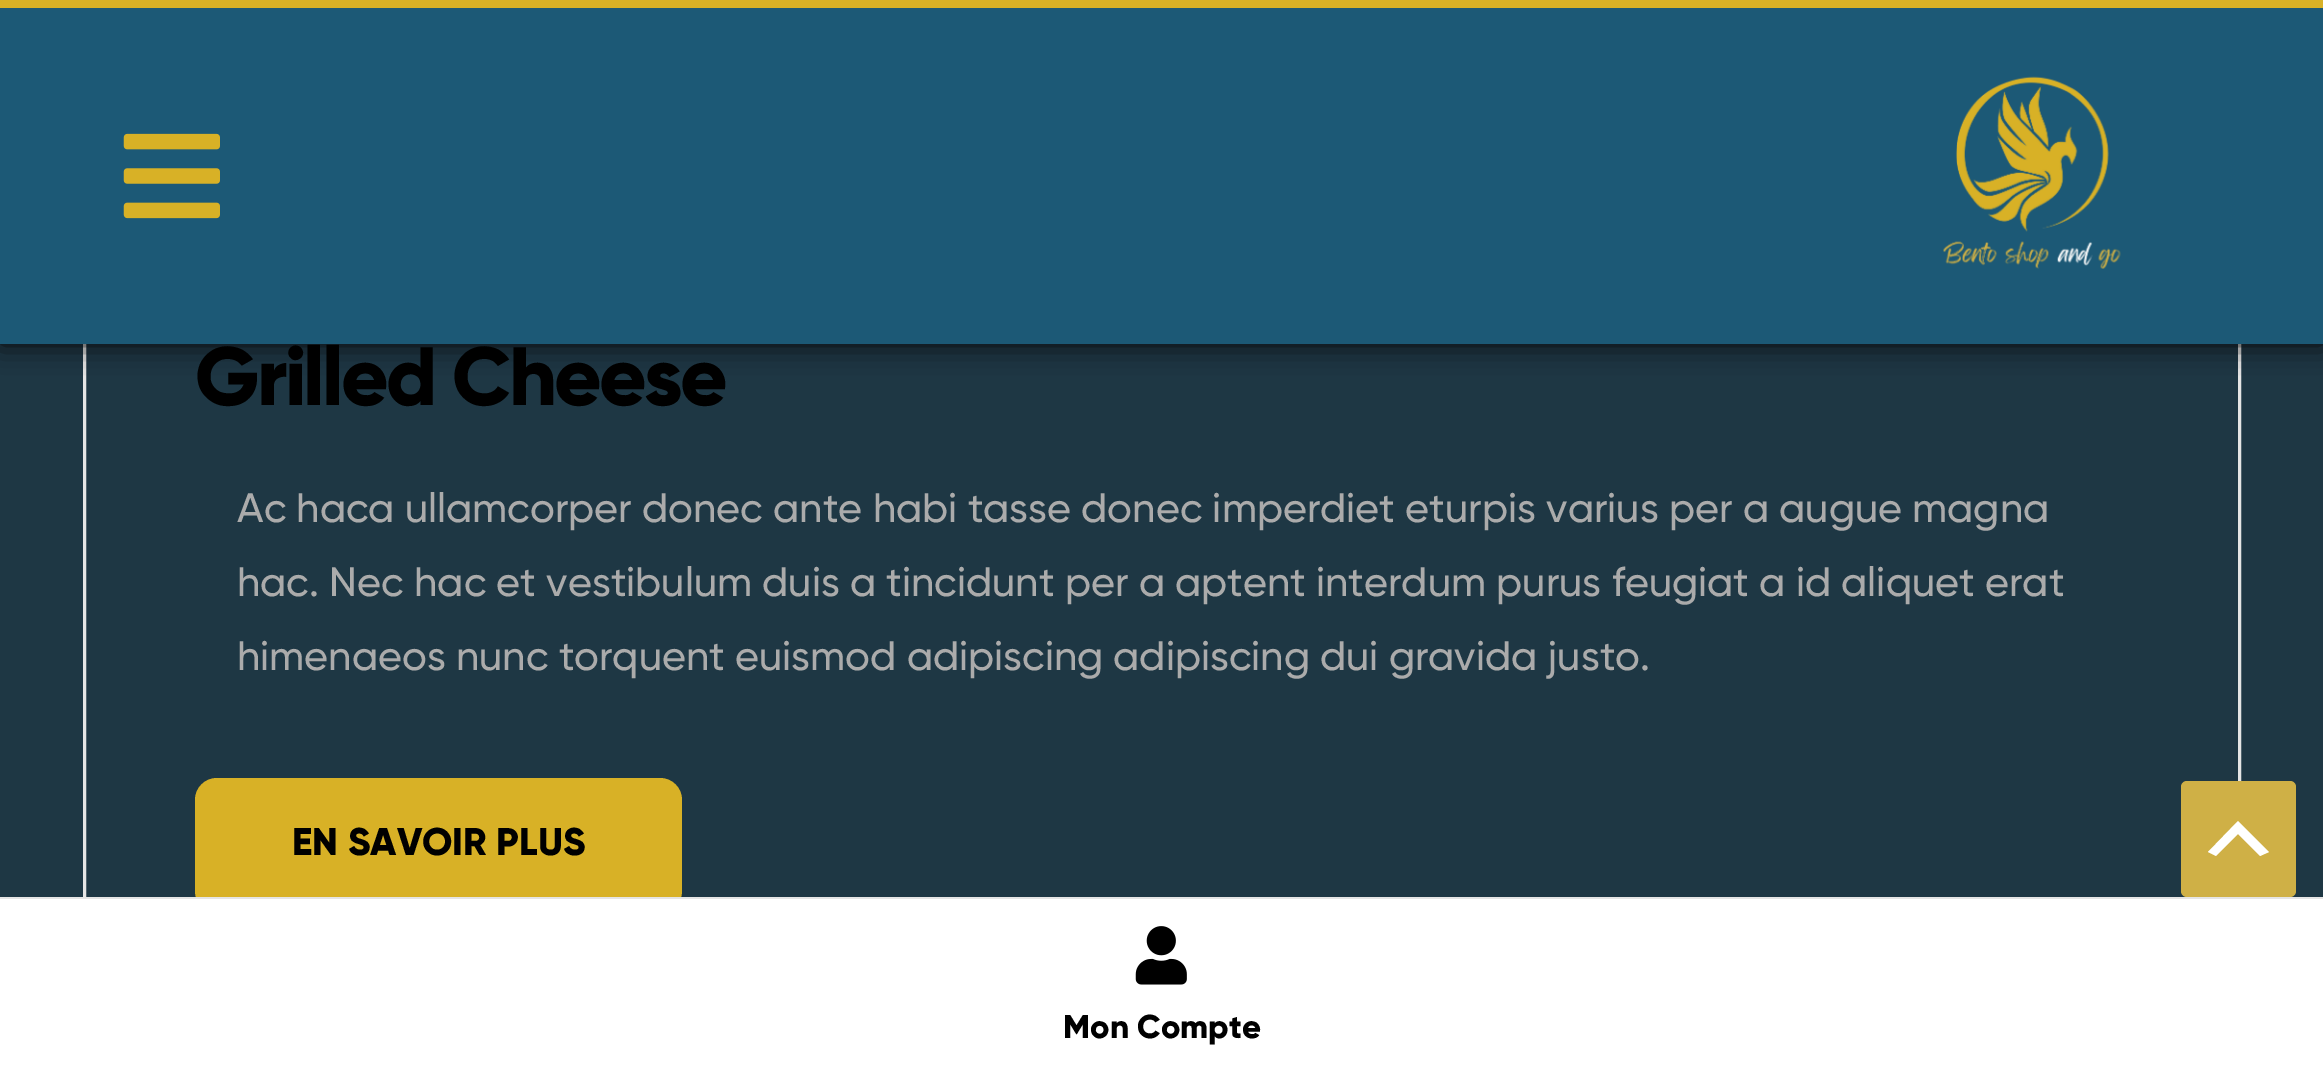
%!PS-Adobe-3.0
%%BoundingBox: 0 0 2323 1075
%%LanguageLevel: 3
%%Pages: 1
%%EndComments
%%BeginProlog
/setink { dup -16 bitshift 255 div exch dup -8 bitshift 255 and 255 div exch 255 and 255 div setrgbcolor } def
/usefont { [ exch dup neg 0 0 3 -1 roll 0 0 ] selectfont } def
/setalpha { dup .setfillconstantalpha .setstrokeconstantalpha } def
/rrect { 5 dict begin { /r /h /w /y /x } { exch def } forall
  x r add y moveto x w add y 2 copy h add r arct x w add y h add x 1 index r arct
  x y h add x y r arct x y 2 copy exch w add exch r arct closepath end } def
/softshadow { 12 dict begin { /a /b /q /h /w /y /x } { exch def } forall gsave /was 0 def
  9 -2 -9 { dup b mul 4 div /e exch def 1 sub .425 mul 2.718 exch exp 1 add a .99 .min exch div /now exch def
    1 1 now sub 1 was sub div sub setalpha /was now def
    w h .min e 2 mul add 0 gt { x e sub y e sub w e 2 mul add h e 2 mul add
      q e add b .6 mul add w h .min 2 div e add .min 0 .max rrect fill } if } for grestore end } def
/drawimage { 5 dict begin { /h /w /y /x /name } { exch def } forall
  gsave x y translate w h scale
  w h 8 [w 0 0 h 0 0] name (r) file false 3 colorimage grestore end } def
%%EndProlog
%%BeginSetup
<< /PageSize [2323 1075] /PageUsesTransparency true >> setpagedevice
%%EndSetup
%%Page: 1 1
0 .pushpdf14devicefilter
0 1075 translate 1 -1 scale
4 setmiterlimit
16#1E3744 setink
0 0 2323 1075 rectfill
16#E5E5E5 setink
3 setlinewidth
84.5 -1.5 2155 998 rectstroke
16#060606 setink
0 0 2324 344 0 14 1 softshadow
16#1C5976 setink
0 8 2323 336 rectfill
16#D8B126 setink
0 0 2323 8 rectfill
(img1.raw) 123 133 97 86 drawimage
(img2.raw) 1943 76 178 193 drawimage
/Gilroy-ExtraBold 82.5 usefont
16#000000 setink
195 405 moveto -2.75 0 (Grilled Cheese) ashow
/Gilroy-Medium 41.25 usefont
16#ABABAB setink
[
    [(Ac haca ullamcorper donec ante habi tasse donec imperdiet eturpis varius per a augue magna) 237 522]
    [(hac. Nec hac et vestibulum duis a tincidunt per a aptent interdum purus feugiat a id aliquet erat) 237 596]
    [(himenaeos nunc torquent euismod adipiscing adipiscing dui gravida justo.) 237 670]
] { aload pop moveto show } forall
16#D8B126 setink
195 778 487 135 22 rrect fill
/Gilroy-ExtraBold 38.5 usefont
16#000000 setink
292 855 moveto (EN SAVOIR PLUS) show
16#E5E5E5 setink
0 897 2323 2 rectfill
16#FFFFFF setink
0 899 2323 176 rectfill
(img3.raw) 1135 926 52 59 drawimage
/Gilroy-ExtraBold 33 usefont
16#000000 setink
1063 1038 moveto (Mon Compte) show
16#CFB046 setink
2181 781 115 116 6 rrect fill
16#FFFFFF setink
2260 856 moveto 2238 834 lineto 2216 856 lineto 2208 852 lineto 2238 821 lineto 2269 852 lineto closepath fill
.poppdf14devicefilter showpage
%%EOF
